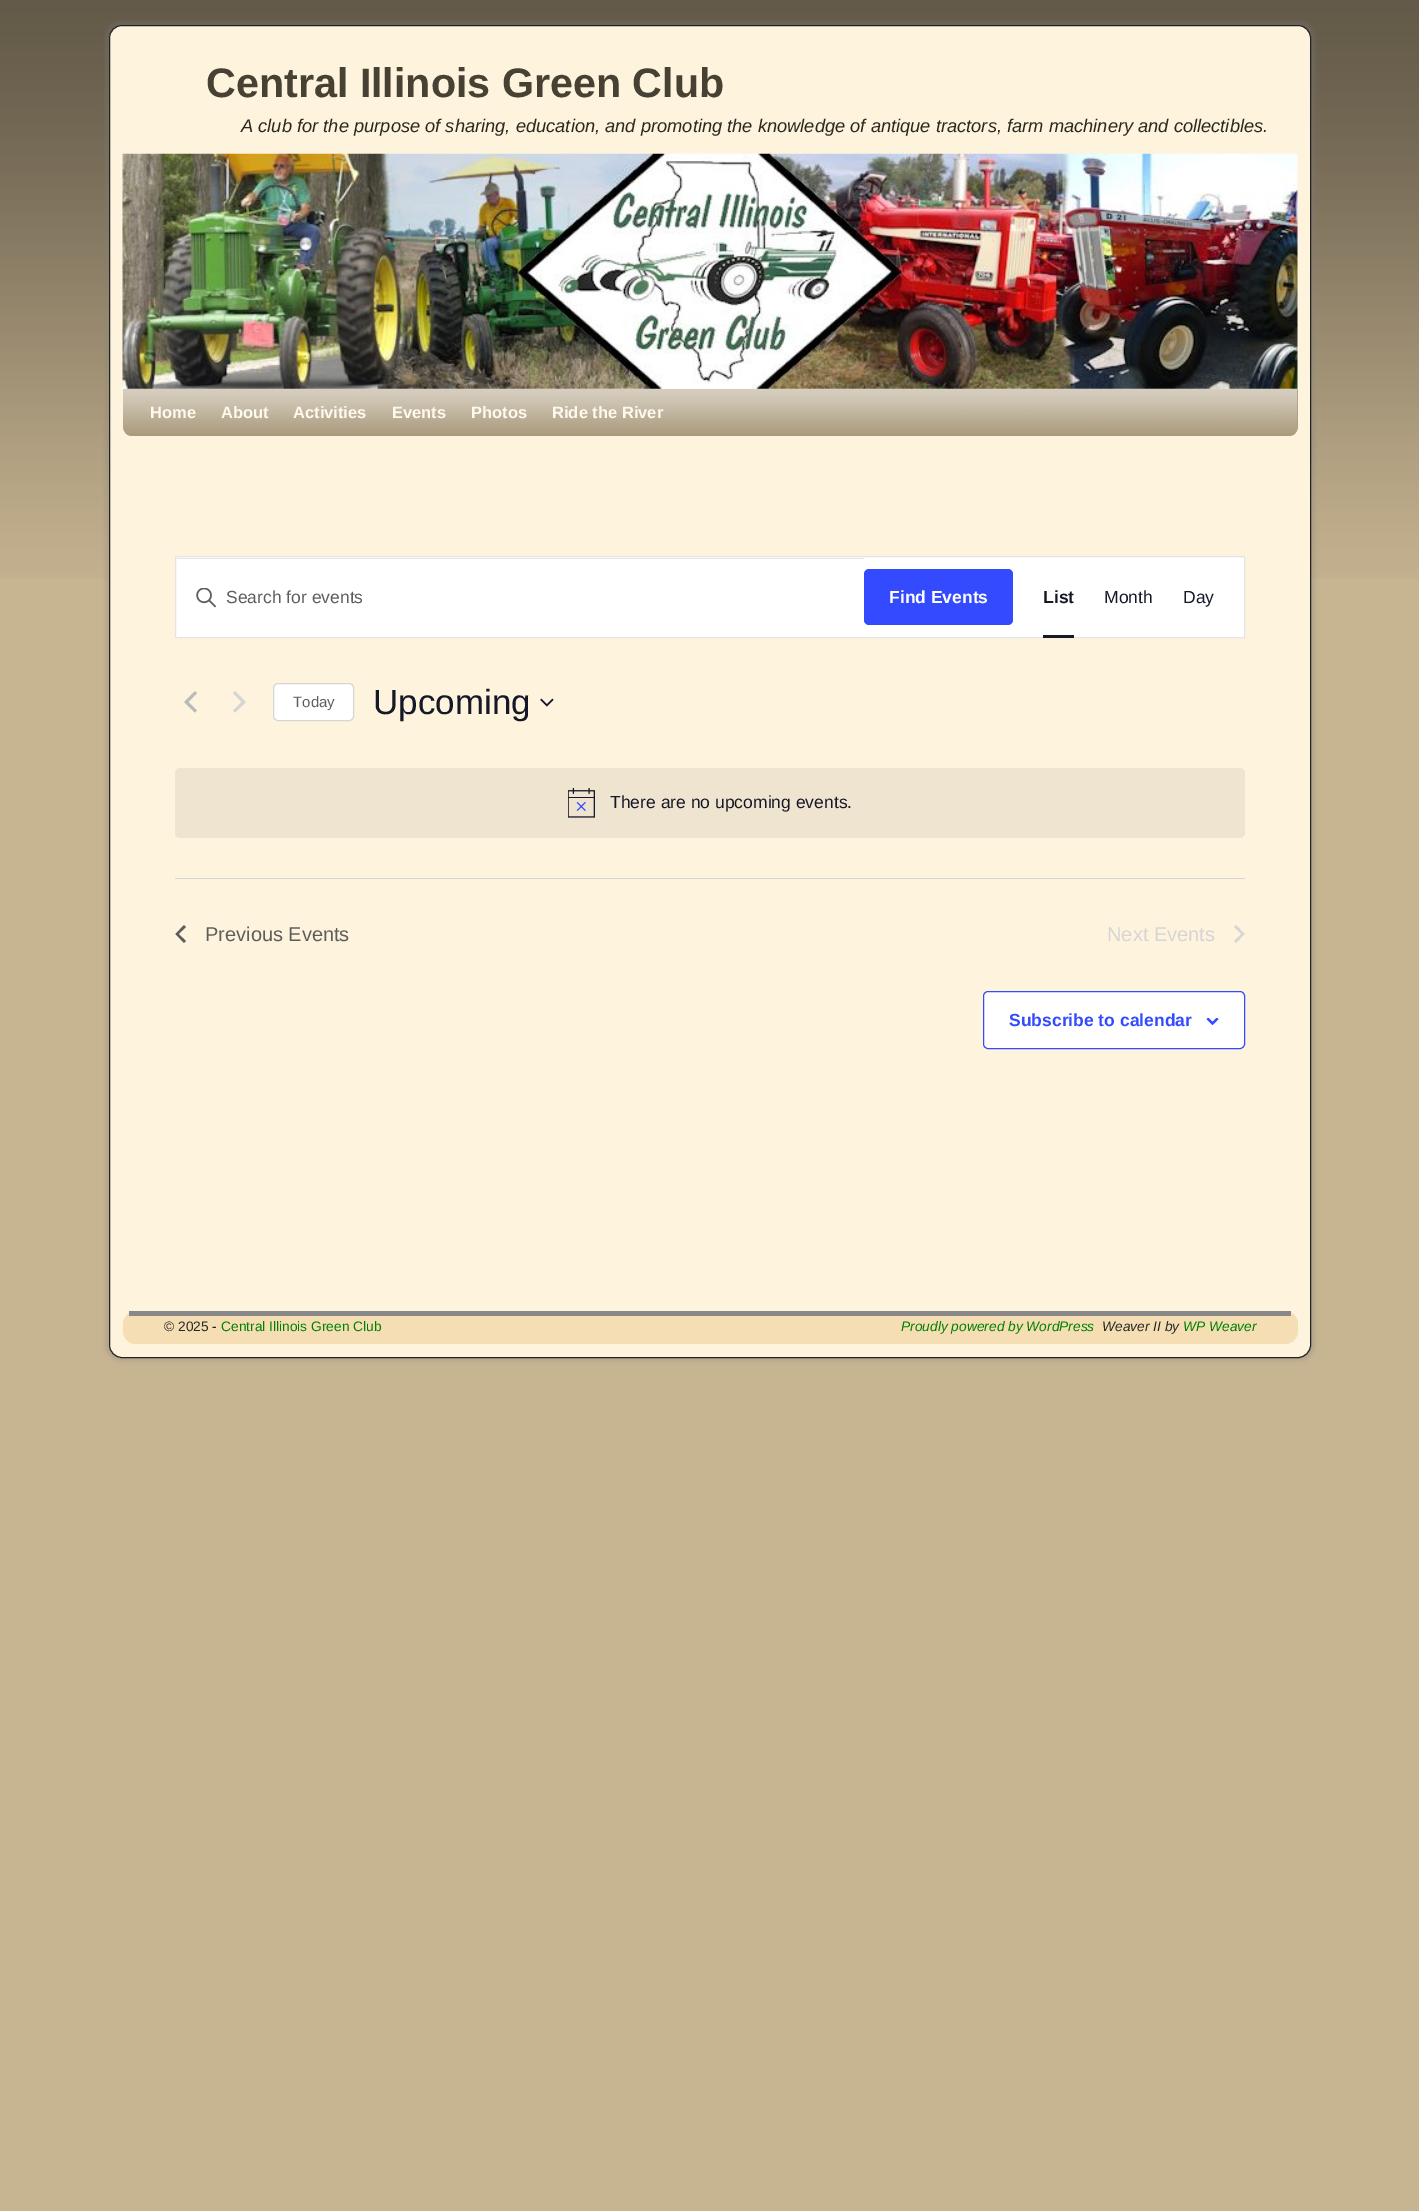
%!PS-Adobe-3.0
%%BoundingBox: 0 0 1419 2211
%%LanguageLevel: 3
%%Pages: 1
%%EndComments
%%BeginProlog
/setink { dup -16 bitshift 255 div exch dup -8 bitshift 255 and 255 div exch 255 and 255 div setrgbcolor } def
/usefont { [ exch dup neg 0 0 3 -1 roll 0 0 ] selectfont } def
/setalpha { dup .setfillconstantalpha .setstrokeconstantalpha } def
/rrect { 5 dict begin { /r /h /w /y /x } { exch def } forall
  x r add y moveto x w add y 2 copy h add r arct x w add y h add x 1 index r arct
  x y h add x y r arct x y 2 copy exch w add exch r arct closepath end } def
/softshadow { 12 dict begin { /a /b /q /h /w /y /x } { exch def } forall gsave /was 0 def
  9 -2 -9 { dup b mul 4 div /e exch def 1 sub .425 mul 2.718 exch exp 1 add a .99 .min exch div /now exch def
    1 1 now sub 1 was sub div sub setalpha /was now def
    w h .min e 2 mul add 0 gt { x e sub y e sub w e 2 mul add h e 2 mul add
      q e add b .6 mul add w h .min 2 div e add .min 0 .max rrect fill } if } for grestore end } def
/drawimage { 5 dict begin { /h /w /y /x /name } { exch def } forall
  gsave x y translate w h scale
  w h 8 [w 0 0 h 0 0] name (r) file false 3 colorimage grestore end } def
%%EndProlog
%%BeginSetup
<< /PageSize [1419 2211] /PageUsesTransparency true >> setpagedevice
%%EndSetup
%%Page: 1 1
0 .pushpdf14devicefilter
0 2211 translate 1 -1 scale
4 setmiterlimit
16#C7B491 setink
0 0 1419 2211 rectfill
(img1.raw) 0 0 1419 579 drawimage
16#7F7F7F setink
105 21 1210 1340 16 2 0.25 softshadow
16#FEF3DD setink
109.5 25.5 1201 1332 12.5 rrect gsave fill grestore
16#222222 setink
stroke
/LiberationSans-Bold 41.25 usefont
16#474134 setink
206 97 moveto (Central Illinois Green Club) show
/LiberationSans-Italic 18.3 usefont
16#2B2820 setink
241 132 moveto (A club for the purpose of sharing, education, and promoting the knowledge of antique tractors, farm machinery and collectibles.) show
(img2.raw) 122 153 1176 236 drawimage
16#AB9B7D setink
123 389 moveto 1298 389 lineto 1298 427 lineto 1298 432 1294 436 1289 436 curveto 132 436 lineto 127 436 123 432 123 427 curveto closepath fill
(img3.raw) 122 389 1176 44 drawimage
/LiberationSans-Bold 16.5 usefont
16#FFFAEF setink
[
    [(Home) 150 418]
    [(About) 221 418]
    [(Activities) 293 418]
    [(Events) 392 418]
    [(Photos) 471 418]
    [(Ride the River) 552 418]
] { aload pop moveto show } forall
16#FFFFFF setink
175.5 556.5 moveto 1244.5 556.5 lineto 1244.5 637.5 lineto 175.5 637.5 lineto closepath gsave fill grestore
16#E4E4E4 setink
stroke
(img4.raw) 196 588 20 20 drawimage
16#E6E6E6 setink
176 558 688 1 rectfill
/LiberationSans-Regular 17.5 usefont
16#5D5D5D setink
226 603 moveto (Search for events) show
16#334AFF setink
864 569 149 56 5 rrect fill
/LiberationSans-Bold 17.5 usefont
16#FFFFFF setink
889 603 moveto (Find Events) show
16#141827 setink
1043 603 moveto (List) show
1043 635 31 3 rectfill
/LiberationSans-Regular 17.5 usefont
1104 603 moveto (Month) show
1183 603 moveto (Day) show
16#BABABA setink
197 710.5 moveto 195 712.5 lineto 184 702 lineto 195 691 lineto 197 693 lineto 188.5 702 lineto closepath fill
16#D5D5D5 setink
233 693 moveto 235 691 lineto 246 702 lineto 235 712.5 lineto 233 710.5 lineto 241.5 702 lineto closepath fill
16#FFFFFF setink
273.5 683.5 80 37 4.5 rrect gsave fill grestore
16#D5D5D5 setink
stroke
/LiberationSans-Regular 15 usefont
16#5D5D5D setink
293 707 moveto (Today) show
/LiberationSans-Regular 35 usefont
16#141827 setink
373 714 moveto (Upcoming) show
(img5.raw) 540 698 14 9 drawimage
16#EEE4D0 setink
175 768 1070 70 5 rrect fill
(img6.raw) 568 788 27 30 drawimage
/LiberationSans-Regular 17.5 usefont
16#141827 setink
610 808 moveto (There are no upcoming events.) show
16#D5D5D5 setink
175 878 1070 1 rectfill
16#5D5D5D setink
186 941 moveto 184 943 lineto 175.5 934 lineto 184 925 lineto 186 927 lineto 178.5 934 lineto closepath fill
/LiberationSans-Regular 20 usefont
205 941 moveto (Previous Events) show
16#D5D5D5 setink
1107 941 moveto (Next Events) show
1234 927 moveto 1236 925 lineto 1244.5 934 lineto 1236 943 lineto 1234 941 lineto 1241.5 934 lineto closepath fill
16#FFFFFF setink
983.5 991.5 261 57 4.5 rrect gsave fill grestore
16#334AFF setink
stroke
/LiberationSans-Bold 17.5 usefont
1009 1026 moveto (Subscribe to calendar) show
(img7.raw) 1206 1018 13 7 drawimage
16#F5DEB3 setink
123 1311 1175 33 13 rrect fill
16#888888 setink
129 1311 1162 5 rectfill
/LiberationSans-Regular 13.75 usefont
16#292929 setink
164 1331 moveto (© 2025 -) show
16#008000 setink
221 1331 moveto (Central Illinois Green Club) show
/LiberationSans-Italic 13.75 usefont
901 1331 moveto (Proudly powered by WordPress) show
16#292929 setink
1102 1331 moveto (Weaver II by) show
16#008000 setink
1183 1331 moveto (WP Weaver) show
.poppdf14devicefilter showpage
%%EOF
